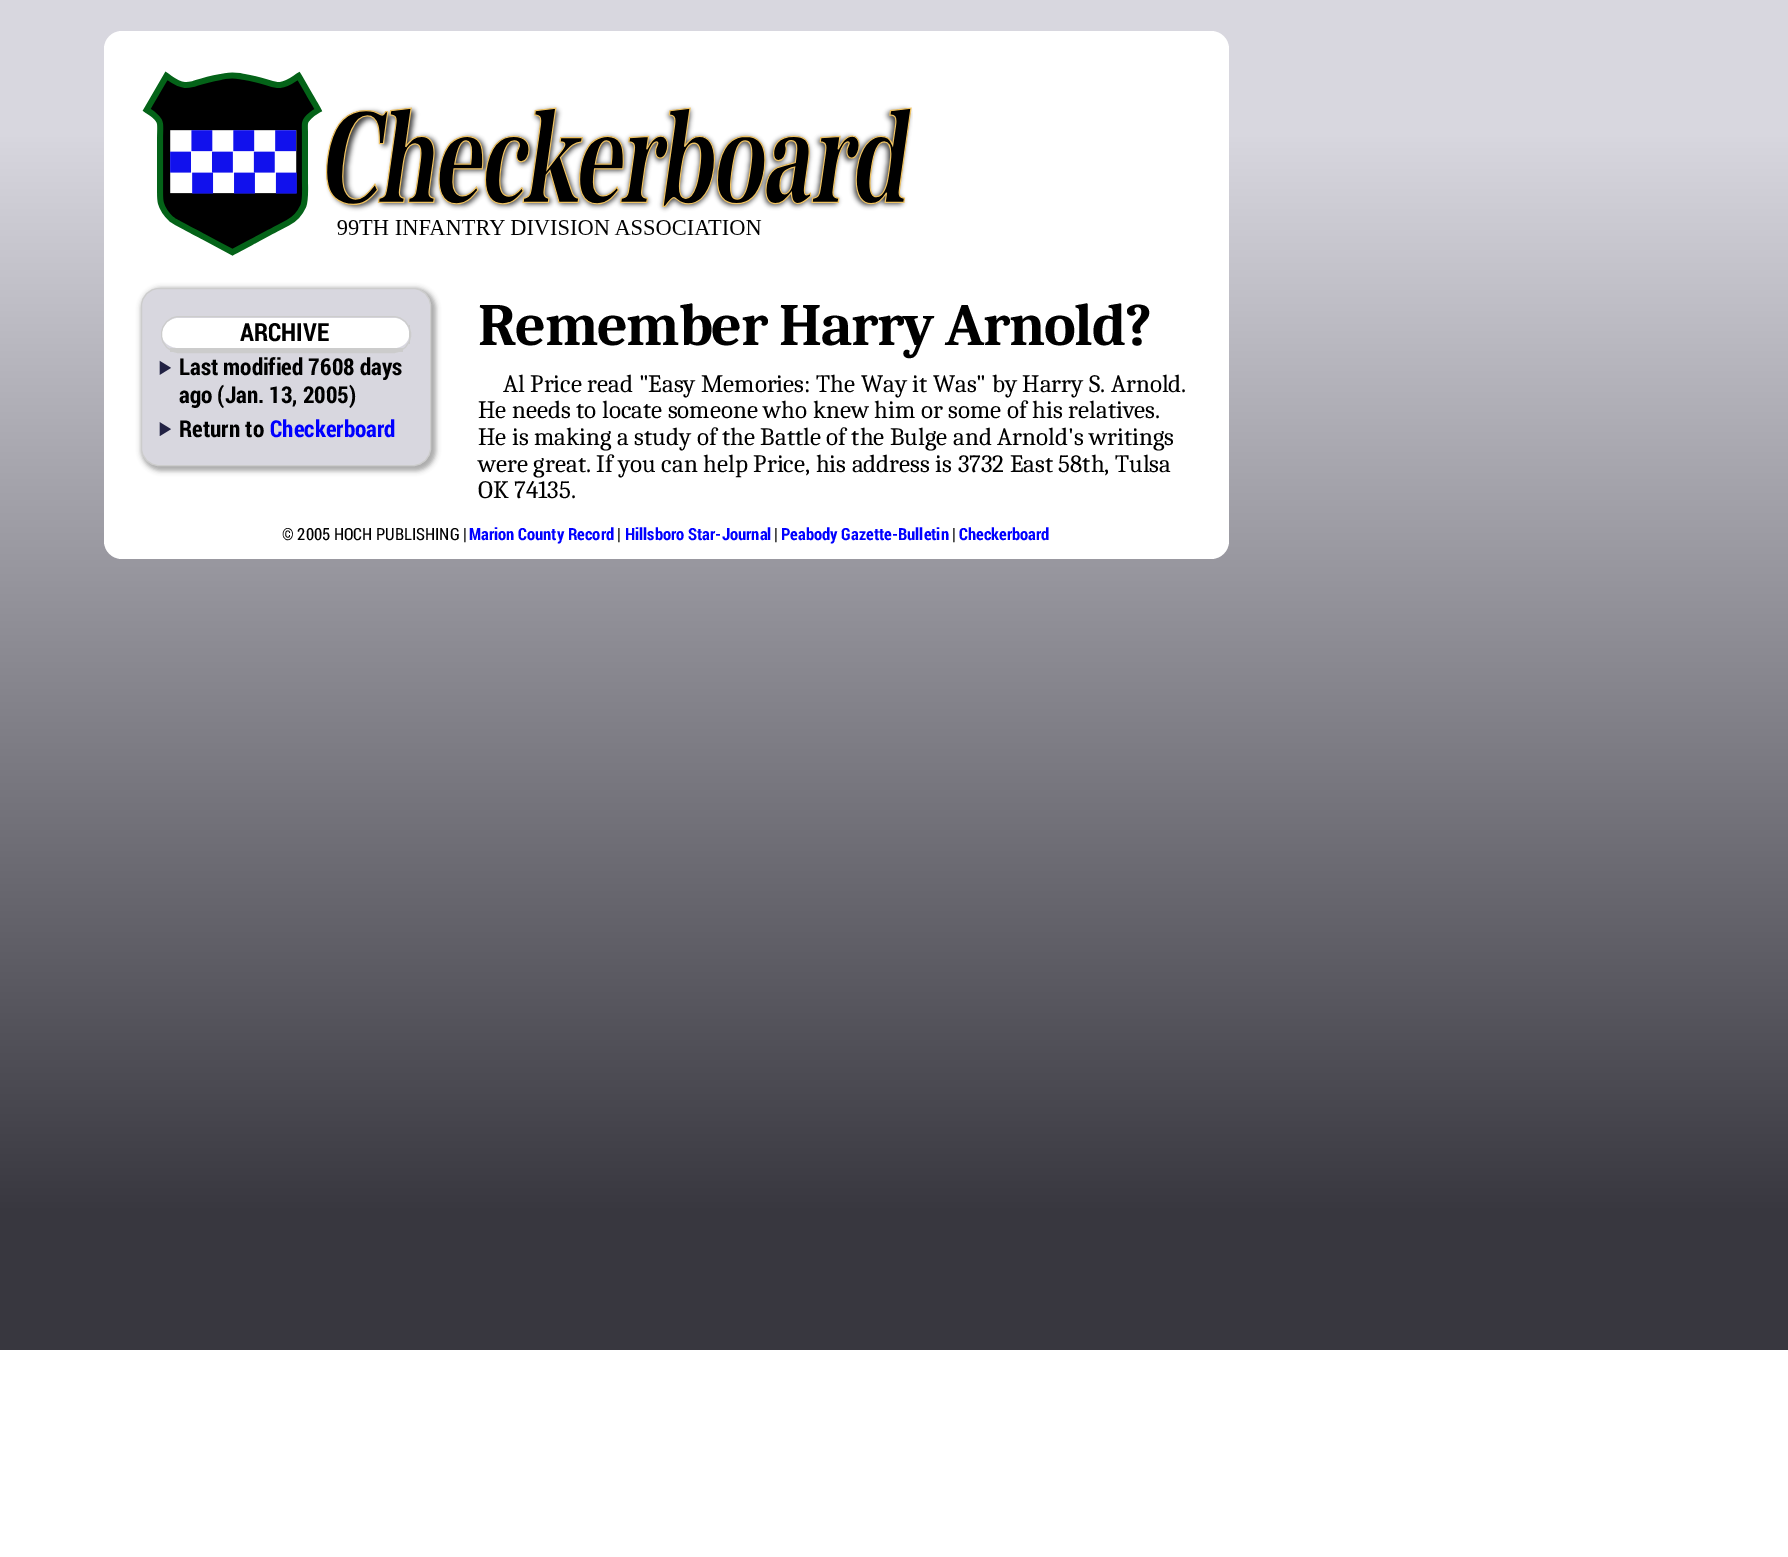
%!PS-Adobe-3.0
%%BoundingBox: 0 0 1788 1557
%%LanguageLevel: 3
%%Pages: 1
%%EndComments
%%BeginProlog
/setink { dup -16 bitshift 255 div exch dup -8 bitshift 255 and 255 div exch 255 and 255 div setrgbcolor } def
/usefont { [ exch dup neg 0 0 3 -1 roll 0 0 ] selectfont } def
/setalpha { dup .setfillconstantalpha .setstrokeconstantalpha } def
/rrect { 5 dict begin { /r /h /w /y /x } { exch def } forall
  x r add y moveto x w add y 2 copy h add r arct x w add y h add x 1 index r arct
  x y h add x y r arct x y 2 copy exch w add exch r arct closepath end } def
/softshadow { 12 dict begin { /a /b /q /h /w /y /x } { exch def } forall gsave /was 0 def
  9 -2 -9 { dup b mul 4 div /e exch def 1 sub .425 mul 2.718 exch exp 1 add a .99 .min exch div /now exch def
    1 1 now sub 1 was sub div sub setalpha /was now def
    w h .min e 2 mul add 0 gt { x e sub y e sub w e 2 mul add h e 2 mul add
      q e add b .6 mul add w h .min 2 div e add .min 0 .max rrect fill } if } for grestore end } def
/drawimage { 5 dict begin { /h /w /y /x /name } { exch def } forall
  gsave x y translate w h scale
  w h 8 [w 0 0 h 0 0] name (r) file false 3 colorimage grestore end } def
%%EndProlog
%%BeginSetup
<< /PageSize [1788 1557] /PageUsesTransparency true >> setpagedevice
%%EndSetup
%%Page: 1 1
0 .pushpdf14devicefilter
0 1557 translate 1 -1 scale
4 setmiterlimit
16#FFFFFF setink
0 0 1788 1557 rectfill
gsave 0 0 moveto 1788 0 lineto 1788 1350 lineto 0 1350 lineto closepath clip newpath
<< /ShadingType 2 /ColorSpace /DeviceRGB /Coords [1200 0 1200 1350] /Extend [true true] /Function << /FunctionType 3 /Domain [0 1] /Functions [<< /FunctionType 2 /Domain [0 1] /C0 [0.847 0.843 0.875] /C1 [0.847 0.843 0.875] /N 1 >> << /FunctionType 2 /Domain [0 1] /C0 [0.847 0.843 0.875] /C1 [0.22 0.216 0.247] /N 1 >> << /FunctionType 2 /Domain [0 1] /C0 [0.22 0.216 0.247] /C1 [0.22 0.216 0.247] /N 1 >>] /Bounds [0.1 0.9] /Encode [0 1 0 1 0 1] >> >> shfill grestore
104 31 1125 338 18 rrect fill
(img1.raw) 142 71 771 185 drawimage
104 275 1125 284 18 rrect fill
16#AAAAAA setink
141 288 295 183 20 2.5 1 softshadow
16#D8D7DF setink
141.5 288.5 289 177 17.5 rrect gsave fill grestore
16#CCCCCC setink
stroke
16#FFFFFF setink
179 318 moveto 394 318 lineto 402 318 409 325 409 334 curveto 409 335 lineto 409 342 402 348 394 348 curveto 179 348 lineto 170 348 162 342 162 335 curveto 162 334 lineto 162 325 170 318 179 318 curveto closepath fill
16#CCCCCC setink
161.5 316.5 249 36 17.5 rrect stroke
409 325 1 19 rectfill
170 348 233 4 rectfill
/RobotoCondensed-Bold 25 usefont
16#000000 setink
240 341 moveto (ARCHIVE) show
(img2.raw) 159 360 12 15 drawimage
/RobotoCondensed-Bold 23.25 usefont
179 375 moveto (Last modified 7608 days) show
179 403 moveto (ago \(Jan. 13, 2005\)) show
(img3.raw) 159 422 12 14 drawimage
179 437 moveto (Return to) show
16#0000FF setink
270 437 moveto (Checkerboard) show
/Caladea-Bold 60 usefont
16#000000 setink
478 345 moveto -1.25 0 (Remember Harry Arnold?) ashow
/Caladea-Regular 25 usefont
[
    [(Al Price read "Easy Memories: The Way it Was" by Harry S. Arnold.) 503 392]
    [(He needs to locate someone who knew him or some of his relatives.) 478 418]
    [(He is making a study of the Battle of the Bulge and Arnold's writings) 478 445]
    [(were great. If you can help Price, his address is 3732 East 58th, Tulsa) 478 472]
    [(OK 74135.) 478 498]
] { aload pop moveto show } forall
/RobotoCondensed-Regular 16.75 usefont
282 540 moveto (© 2005 HOCH PUBLISHING |) show
/RobotoCondensed-Bold 16.75 usefont
16#0000FF setink
469 540 moveto (Marion County Record) show
/RobotoCondensed-Regular 16.75 usefont
16#000000 setink
617 540 moveto (|) show
/RobotoCondensed-Bold 16.75 usefont
16#0000FF setink
625 540 moveto (Hillsboro Star-Journal) show
/RobotoCondensed-Regular 16.75 usefont
16#000000 setink
774 540 moveto (|) show
/RobotoCondensed-Bold 16.75 usefont
16#0000FF setink
781 540 moveto (Peabody Gazette-Bulletin) show
/RobotoCondensed-Regular 16.75 usefont
16#000000 setink
952 540 moveto (|) show
/RobotoCondensed-Bold 16.75 usefont
16#0000FF setink
959 540 moveto (Checkerboard) show
.poppdf14devicefilter showpage
%%EOF
